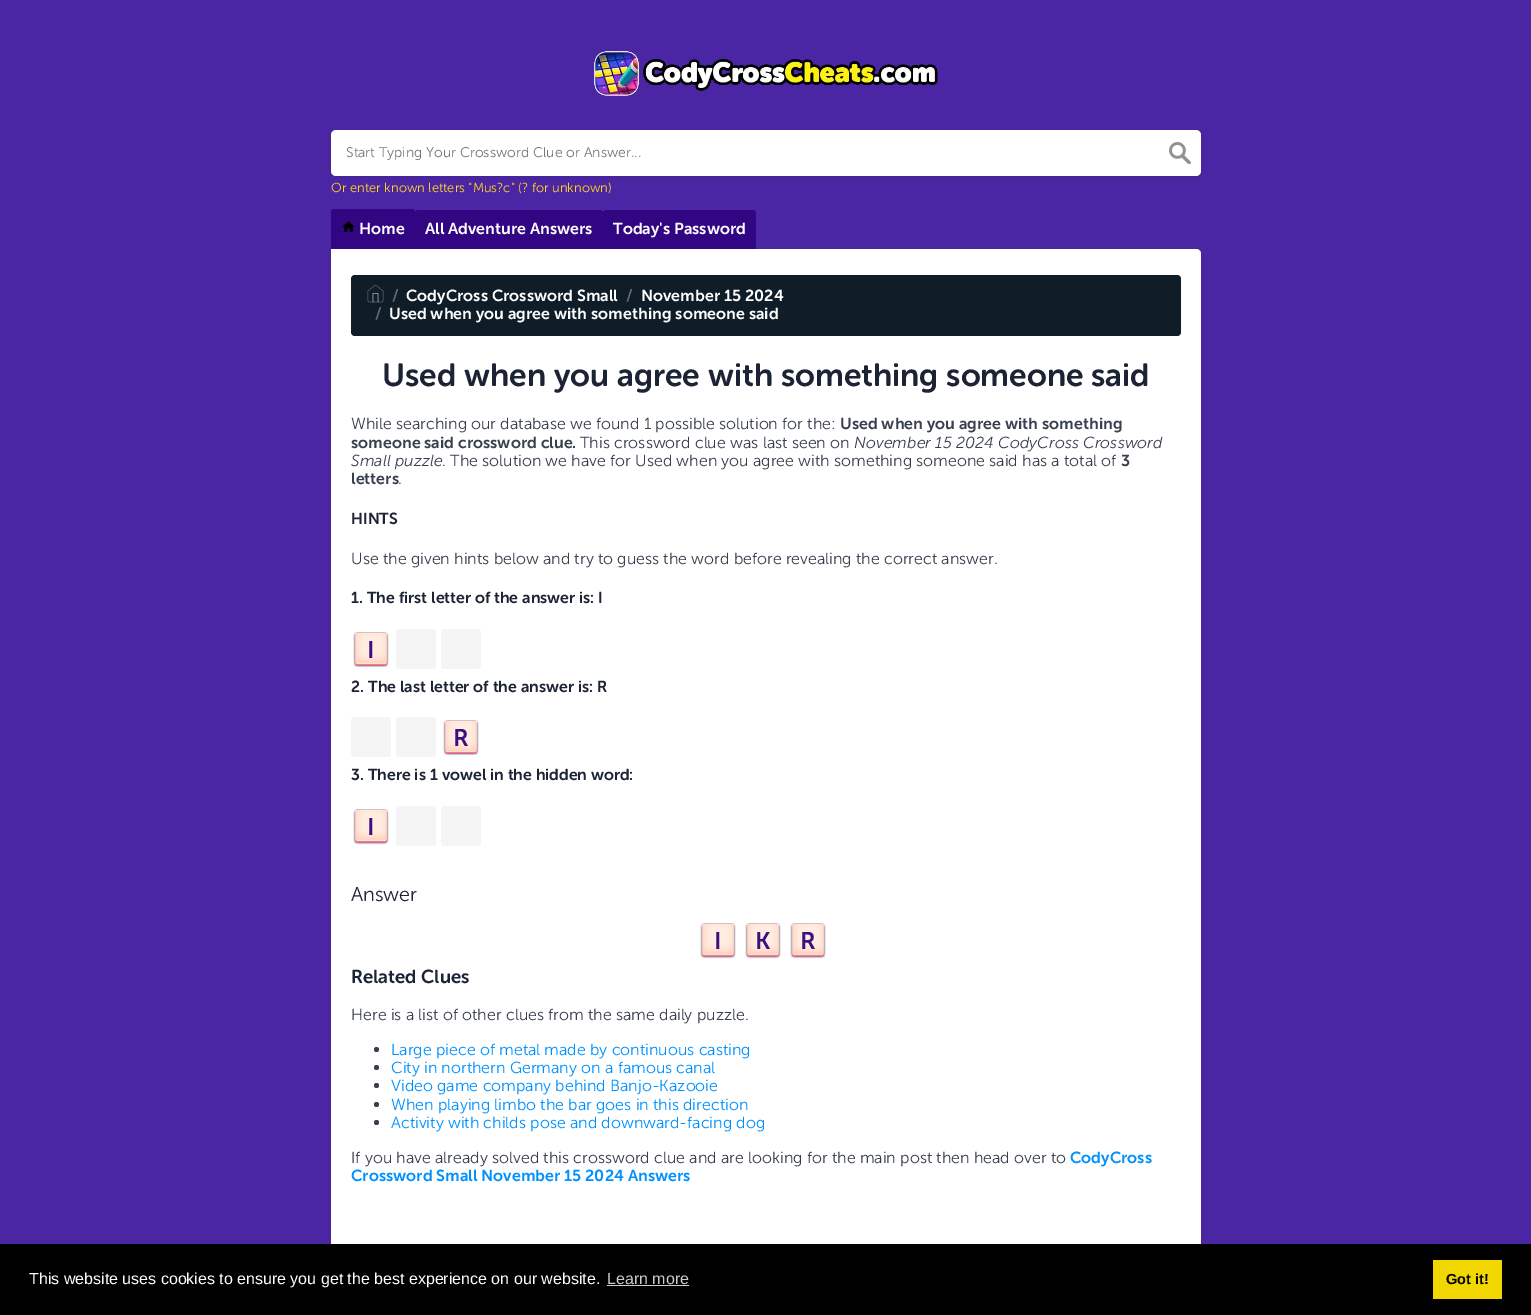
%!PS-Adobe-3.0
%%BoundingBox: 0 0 1531 1315
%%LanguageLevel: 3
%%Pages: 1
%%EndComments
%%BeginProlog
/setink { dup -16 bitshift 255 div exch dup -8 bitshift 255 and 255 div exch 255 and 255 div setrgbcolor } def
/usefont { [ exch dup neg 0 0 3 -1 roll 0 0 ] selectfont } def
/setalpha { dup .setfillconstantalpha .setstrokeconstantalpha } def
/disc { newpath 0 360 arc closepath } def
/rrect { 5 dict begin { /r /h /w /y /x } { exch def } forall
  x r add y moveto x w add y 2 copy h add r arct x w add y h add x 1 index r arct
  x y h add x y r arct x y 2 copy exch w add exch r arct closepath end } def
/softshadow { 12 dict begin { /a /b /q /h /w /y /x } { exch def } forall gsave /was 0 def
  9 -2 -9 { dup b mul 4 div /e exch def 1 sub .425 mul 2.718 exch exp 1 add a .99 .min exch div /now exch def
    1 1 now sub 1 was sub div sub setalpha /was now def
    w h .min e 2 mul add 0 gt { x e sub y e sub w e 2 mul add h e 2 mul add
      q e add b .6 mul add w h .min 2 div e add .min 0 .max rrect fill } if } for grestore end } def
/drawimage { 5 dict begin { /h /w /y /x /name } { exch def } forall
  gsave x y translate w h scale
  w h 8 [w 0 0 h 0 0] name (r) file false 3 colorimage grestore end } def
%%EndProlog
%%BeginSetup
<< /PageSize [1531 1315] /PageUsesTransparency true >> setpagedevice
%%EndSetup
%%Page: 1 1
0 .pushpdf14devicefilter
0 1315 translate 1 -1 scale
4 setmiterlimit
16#4B26A4 setink
0 0 1531 1315 rectfill
/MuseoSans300-Light 16 usefont
16#383F4E setink
0 14 moveto (.) show
(img1.raw) 594 51 344 45 drawimage
16#000000 setink
331 131 870 46 5 2 0.1 softshadow
16#FFFFFF setink
331 130 870 46 5 rrect fill
/MuseoSans300-Light 14 usefont
16#757575 setink
346 157 moveto (Start Typing Your Crossword Clue or Answer...) show
(img2.raw) 1169 142 22 22 drawimage
/MuseoSans300-Light 13 usefont
16#FED223 setink
331 192 moveto (Or enter known letters "Mus?c" \(? for unknown\)) show
16#000000 setink
331 250 870 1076 5 2 0.1 softshadow
16#320583 setink
334 209 moveto 412 209 lineto 413.5 209 415 210.5 415 212 curveto 415 249 lineto 331 249 lineto 331 212 lineto 331 210.5 332.5 209 334 209 curveto closepath fill
(img3.raw) 342 221 13 11 drawimage
/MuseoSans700-SemiBold 16 usefont
16#FFFFFF setink
359 234 moveto (Home) show
16#320583 setink
418 210 moveto 600 210 lineto 601.5 210 603 211.5 603 213 curveto 603 249 lineto 415 249 lineto 415 213 lineto 415 211.5 416.5 210 418 210 curveto closepath fill
16#FFFFFF setink
425 234 moveto (All Adventure Answers) show
16#320583 setink
606 210 moveto 753 210 lineto 754.5 210 756 211.5 756 213 curveto 756 249 lineto 603 249 lineto 603 213 lineto 603 211.5 604.5 210 606 210 curveto closepath fill
16#FFFFFF setink
613 234 moveto (Today's Password) show
331 249 moveto 1196 249 lineto 1199 249 1201 251 1201 254 curveto 1201 1315 lineto 1201 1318 1199 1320 1196 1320 curveto 336 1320 lineto 333 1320 331 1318 331 1315 curveto closepath fill
16#0F1D28 setink
351 275 830 61 4 rrect fill
(img4.raw) 367 284 17 19 drawimage
16#636C72 setink
392 301 moveto (/) show
16#FFFFFF setink
406 301 moveto (CodyCross Crossword Small) show
16#636C72 setink
626 301 moveto (/) show
16#FFFFFF setink
641 301 moveto (November 15 2024) show
16#636C72 setink
375 319 moveto (/) show
16#FFFFFF setink
389 319 moveto (Used when you agree with something someone said) show
/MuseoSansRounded-SemiBold 32 usefont
16#1C2334 setink
382 386 moveto (Used when you agree with something someone said) show
/MuseoSans300-Light 16 usefont
16#383F4E setink
351 429 moveto (While searching our database we found 1 possible solution for the:) show
/MuseoSans700-SemiBold 16 usefont
840 429 moveto (Used when you agree with something) show
351 448 moveto (someone said crossword clue.) show
/MuseoSans300-Light 16 usefont
580 448 moveto (This crossword clue was last seen on) show
/MuseoSans300-LightItalic 16 usefont
854 448 moveto (November 15 2024 CodyCross Crossword) show
351 466 moveto (Small puzzle) show
/MuseoSans300-Light 16 usefont
442 466 moveto (. The solution we have for Used when you agree with something someone said has a total of) show
/MuseoSans700-SemiBold 16 usefont
1121 466 moveto (3) show
351 484 moveto (letters) show
/MuseoSans300-Light 16 usefont
398 484 moveto (.) show
/MuseoSansRounded-SemiBold 16 usefont
16#1C2334 setink
351 524 moveto (HINTS) show
/MuseoSans300-Light 16 usefont
16#383F4E setink
351 564 moveto (Use the given hints below and try to guess the word before revealing the correct answer.) show
/MuseoSansRounded-SemiBold 16 usefont
16#1C2334 setink
351 603 moveto (1. The first letter of the answer is: I) show
(img5.raw) 353 632 36 36 drawimage
/MuseoSans700-SemiBold 24 usefont
16#3D1080 setink
367 658 moveto (I) show
16#F5F5F5 setink
396 629 40 40 3 rrect fill
441 629 40 40 3 rrect fill
/MuseoSansRounded-SemiBold 16 usefont
16#1C2334 setink
351 692 moveto (2. The last letter of the answer is: R) show
16#F5F5F5 setink
351 717 40 40 3 rrect fill
396 717 40 40 3 rrect fill
(img5.raw) 443 720 36 36 drawimage
/MuseoSans700-SemiBold 24 usefont
16#3D1080 setink
453 746 moveto (R) show
/MuseoSansRounded-SemiBold 16 usefont
16#1C2334 setink
351 780 moveto (3. There is 1 vowel in the hidden word:) show
(img5.raw) 353 809 36 36 drawimage
/MuseoSans700-SemiBold 24 usefont
16#3D1080 setink
367 835 moveto (I) show
16#F5F5F5 setink
396 806 40 40 3 rrect fill
441 806 40 40 3 rrect fill
/MuseoSansRounded-Light 20 usefont
16#1C2334 setink
351 901 moveto (Answer) show
(img6.raw) 700 923 36 36 drawimage
/MuseoSans700-SemiBold 24 usefont
16#3D1080 setink
714 949 moveto (I) show
(img5.raw) 745 923 36 36 drawimage
755 949 moveto (K) show
(img6.raw) 790 923 36 36 drawimage
800 949 moveto (R) show
/MuseoSansRounded-SemiBold 18.75 usefont
16#1C2334 setink
351 983 moveto (Related Clues) show
/MuseoSans300-Light 16 usefont
16#383F4E setink
351 1020 moveto (Here is a list of other clues from the same daily puzzle.) show
376.5 1049.5 2.5 disc fill
16#0091FF setink
391 1055 moveto (Large piece of metal made by continuous casting) show
16#383F4E setink
376.5 1067.5 2.5 disc fill
16#0091FF setink
391 1073 moveto (City in northern Germany on a famous canal) show
16#383F4E setink
376.5 1085.5 2.5 disc fill
16#0091FF setink
391 1091 moveto (Video game company behind Banjo-Kazooie) show
16#383F4E setink
376.5 1104.5 2.5 disc fill
16#0091FF setink
391 1110 moveto (When playing limbo the bar goes in this direction) show
16#383F4E setink
376.5 1122.5 2.5 disc fill
16#0091FF setink
391 1128 moveto (Activity with childs pose and downward-facing dog) show
16#383F4E setink
351 1163 moveto (If you have already solved this crossword clue and are looking for the main post then head over to) show
/MuseoSans700-SemiBold 16 usefont
16#0091FF setink
1070 1163 moveto (CodyCross) show
351 1181 moveto (Crossword Small November 15 2024 Answers) show
16#000000 setink
0 1244 1531 71 rectfill
/LiberationSans-Regular 16 usefont
16#FFFFFF setink
29 1284 moveto (This website uses cookies to ensure you get the best experience on our website.) show
16#CCCCCC setink
607 1284 moveto (Learn more) show
607 1285 82 1 rectfill
16#F1D600 setink
1433 1260 69 39 rectfill
/LiberationSans-Bold 14.5 usefont
16#000000 setink
1446 1284 moveto (Got it!) show
.poppdf14devicefilter showpage
%%EOF
